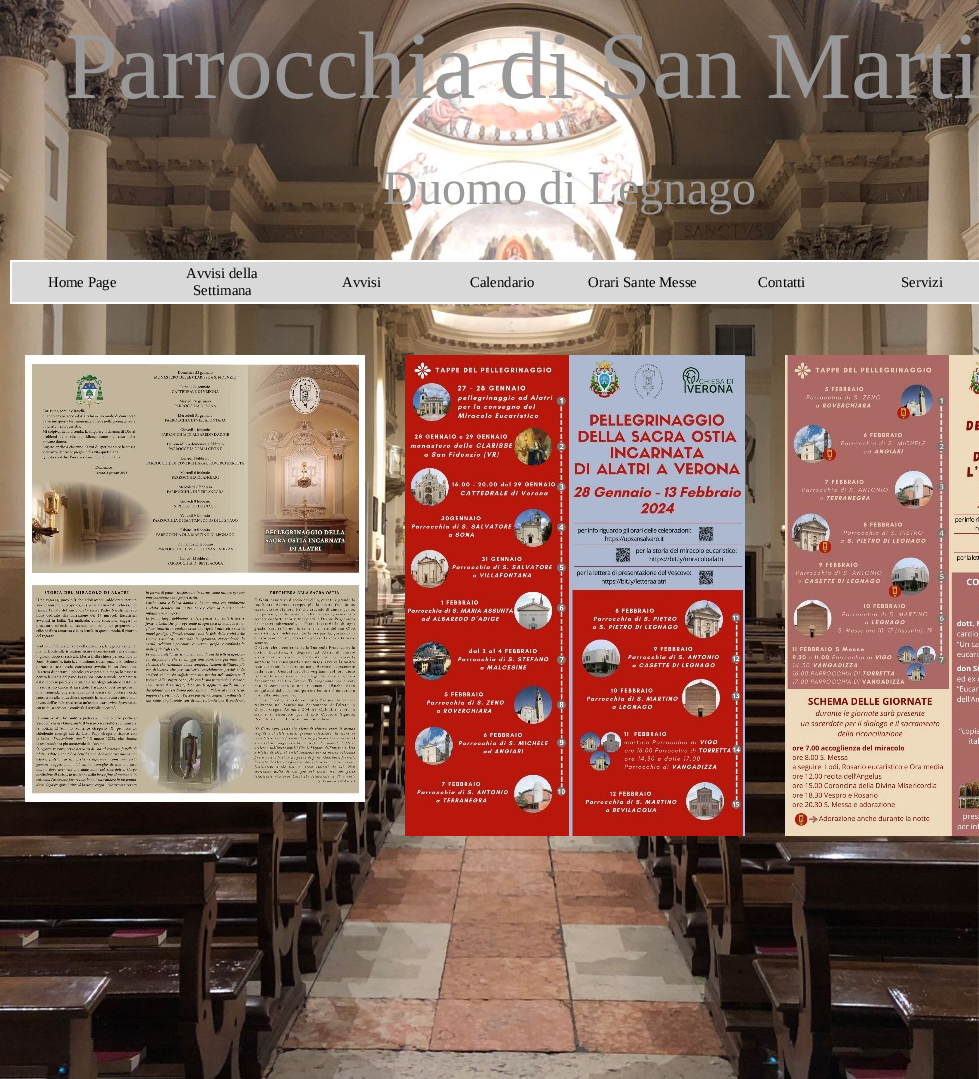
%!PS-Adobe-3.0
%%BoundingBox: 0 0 979 1079
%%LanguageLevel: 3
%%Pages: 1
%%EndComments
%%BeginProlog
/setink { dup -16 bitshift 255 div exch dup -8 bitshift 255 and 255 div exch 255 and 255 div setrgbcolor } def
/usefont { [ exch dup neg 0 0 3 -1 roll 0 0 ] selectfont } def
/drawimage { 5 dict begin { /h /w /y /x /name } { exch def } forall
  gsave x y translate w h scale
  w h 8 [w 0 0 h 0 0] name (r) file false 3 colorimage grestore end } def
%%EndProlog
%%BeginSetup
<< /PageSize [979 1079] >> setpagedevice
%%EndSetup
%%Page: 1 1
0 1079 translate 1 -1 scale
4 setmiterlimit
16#FFFFFF setink
0 0 979 1079 rectfill
(img1.raw) 0 0 979 1079 drawimage
/LiberationSerif-Regular 96 usefont
16#999999 setink
65 98 moveto (Parrocchia di San Marti) show
/LiberationSerif-Regular 48 usefont
383 204 moveto (Duomo di Legnago) show
16#FFFFFF setink
10 260 969 44 rectfill
16#D9D9D9 setink
12 262 967 40 rectfill
/LiberationSerif-Regular 14.75 usefont
16#000000 setink
[
    [(Home Page) 48 287]
    [(Avvisi della) 186 278]
    [(Settimana) 193 295]
    [(Avvisi) 342 287]
    [(Calendario) 470 287]
    [(Orari Sante Messe) 588 287]
    [(Contatti) 758 287]
    [(Servizi) 901 287]
] { aload pop moveto show } forall
(img2.raw) 25 355 340 447 drawimage
(img3.raw) 405 355 340 481 drawimage
(img4.raw) 785 355 194 481 drawimage
showpage
%%EOF
